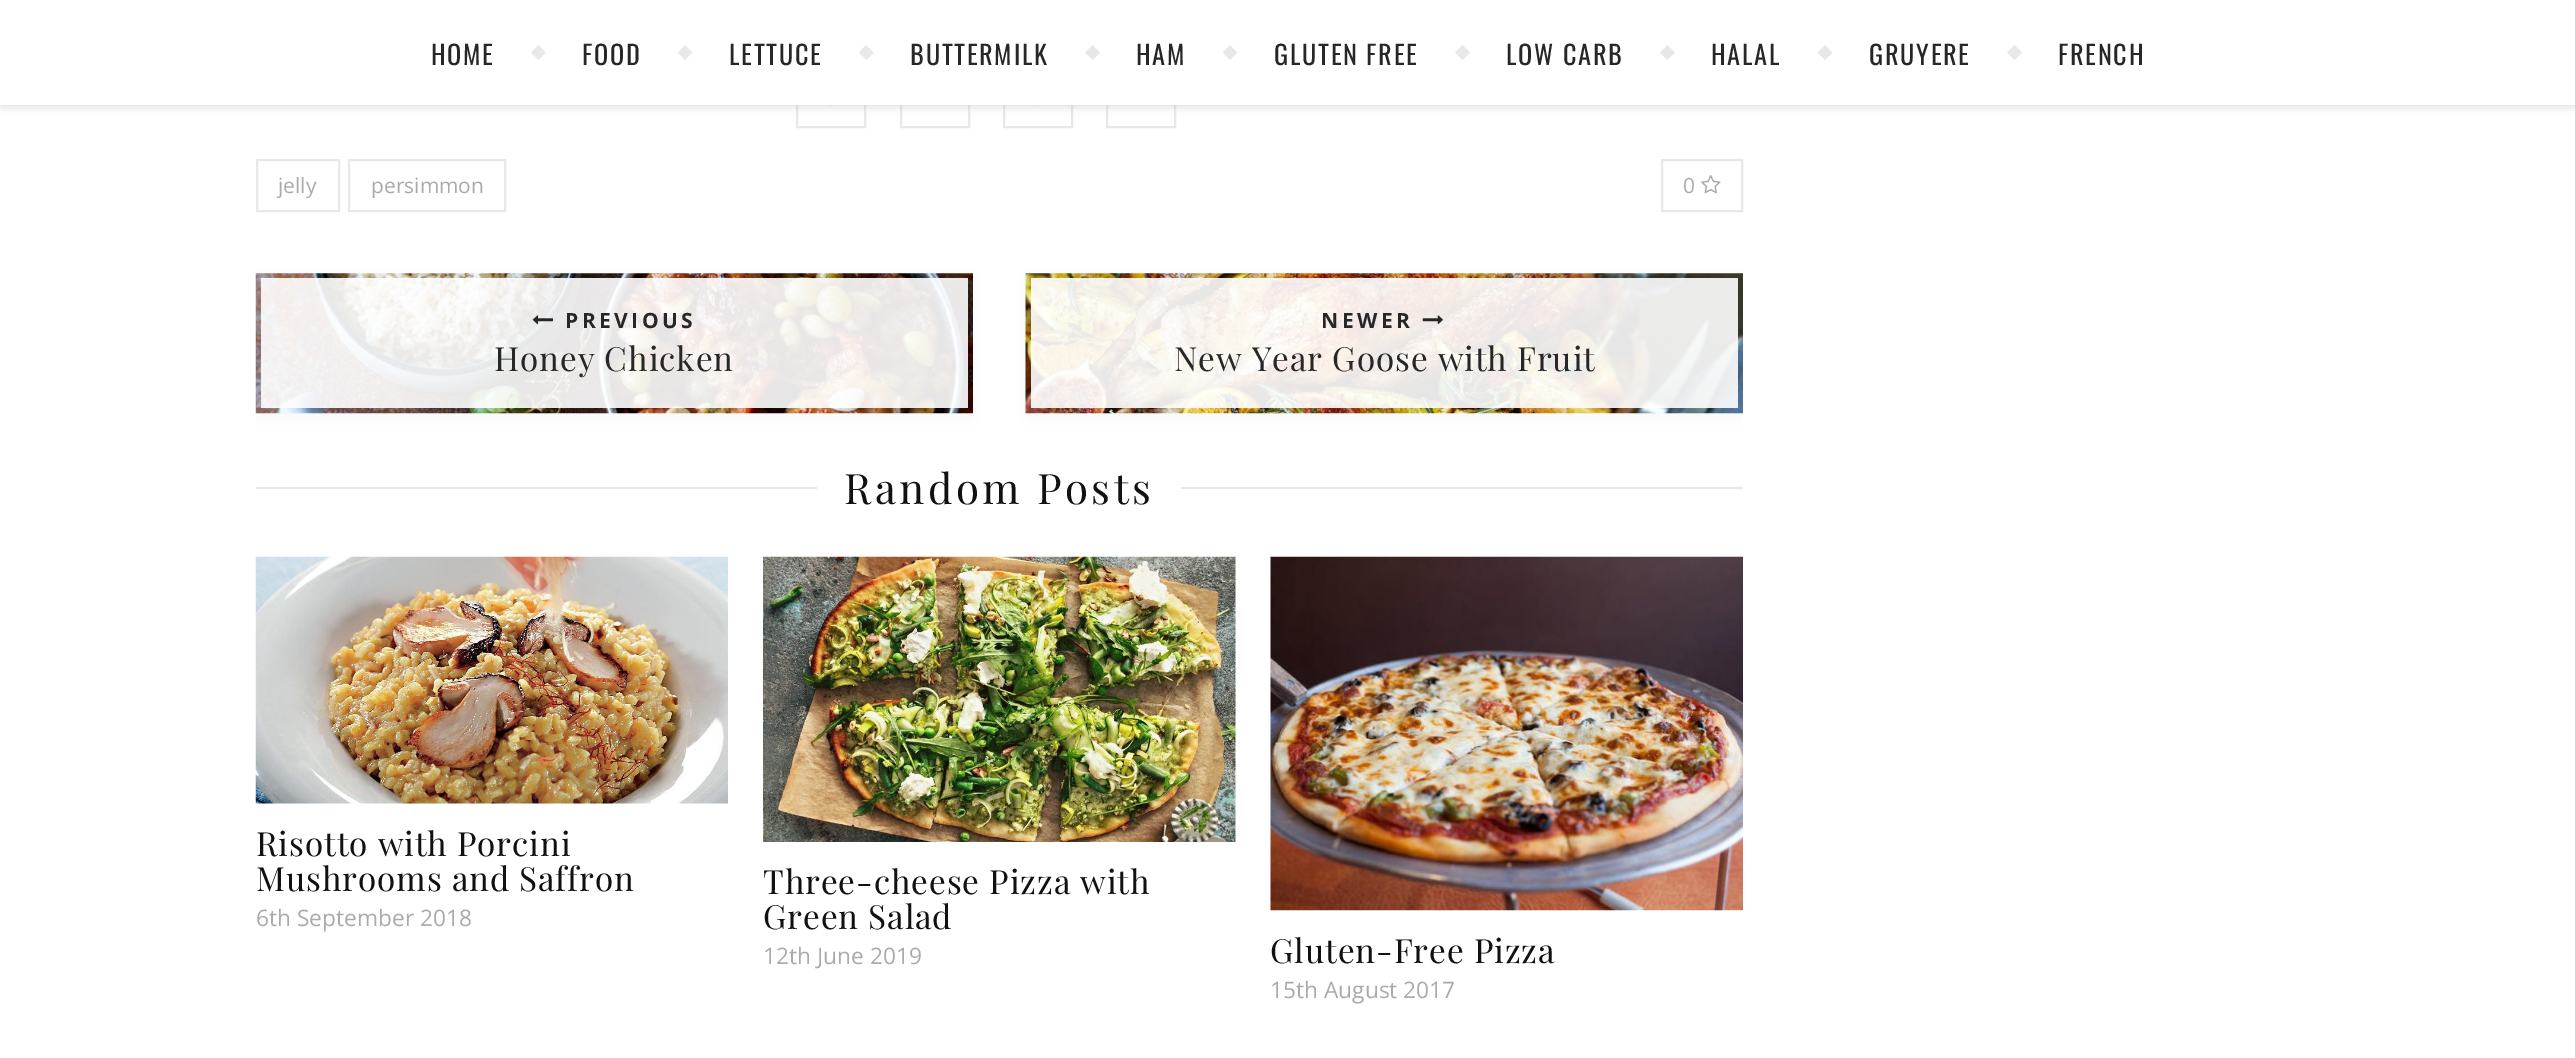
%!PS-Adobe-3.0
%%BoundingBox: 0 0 2575 1058
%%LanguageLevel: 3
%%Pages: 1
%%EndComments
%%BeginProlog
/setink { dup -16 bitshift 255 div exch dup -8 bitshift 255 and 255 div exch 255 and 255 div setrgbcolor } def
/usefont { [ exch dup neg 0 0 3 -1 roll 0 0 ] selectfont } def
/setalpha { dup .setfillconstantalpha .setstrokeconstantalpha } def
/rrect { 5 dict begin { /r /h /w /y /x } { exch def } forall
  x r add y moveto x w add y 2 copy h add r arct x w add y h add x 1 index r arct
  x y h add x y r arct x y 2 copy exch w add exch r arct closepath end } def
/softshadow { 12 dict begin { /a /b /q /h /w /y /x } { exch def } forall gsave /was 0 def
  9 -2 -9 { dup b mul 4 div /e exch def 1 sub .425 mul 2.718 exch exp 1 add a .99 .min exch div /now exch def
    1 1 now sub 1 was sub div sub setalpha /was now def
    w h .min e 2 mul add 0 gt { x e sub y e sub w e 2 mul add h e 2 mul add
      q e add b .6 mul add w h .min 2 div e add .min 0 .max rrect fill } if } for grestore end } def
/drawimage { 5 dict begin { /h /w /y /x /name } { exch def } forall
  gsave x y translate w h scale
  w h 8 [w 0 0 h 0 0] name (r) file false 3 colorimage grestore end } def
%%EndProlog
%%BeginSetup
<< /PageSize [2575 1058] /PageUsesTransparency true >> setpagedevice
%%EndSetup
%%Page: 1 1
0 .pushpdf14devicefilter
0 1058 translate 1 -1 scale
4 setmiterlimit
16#FFFFFF setink
0 0 2575 1058 rectfill
16#E8E8E8 setink
2 setlinewidth
797 59 68 68 rectstroke
(img1.raw) 829 105 5 1 drawimage
901 59 68 68 rectstroke
1004 59 68 68 rectstroke
(img2.raw) 1037 105 3 1 drawimage
1107 59 68 68 rectstroke
16#B9B9B9 setink
0 2 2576 105 0 4.5 0.5 softshadow
16#FFFFFF setink
0 0 2575 105 rectfill
/Oswald-Regular 26.25 usefont
16#272727 setink
431 65 moveto 1.75 0 (HOME) ashow
16#E8E8E8 setink
531 52.5 moveto 538.5 45 lineto 545.5 52.5 lineto 538.5 60 lineto closepath fill
16#272727 setink
582 65 moveto 1.75 0 (FOOD) ashow
16#E8E8E8 setink
678 52.5 moveto 685 45 lineto 692.5 52.5 lineto 685 60 lineto closepath fill
16#272727 setink
729 65 moveto 1.75 0 (LETTUCE) ashow
16#E8E8E8 setink
859 52.5 moveto 866 45 lineto 873.5 52.5 lineto 866.5 60 lineto closepath fill
16#272727 setink
910 65 moveto 1.75 0 (BUTTERMILK) ashow
16#E8E8E8 setink
1085 52.5 moveto 1092.5 45 lineto 1100 52.5 lineto 1092.5 60 lineto closepath fill
16#272727 setink
1136 65 moveto 1.75 0 (HAM) ashow
16#E8E8E8 setink
1223 52.5 moveto 1230 45 lineto 1237.5 52.5 lineto 1230 60 lineto closepath fill
16#272727 setink
1274 65 moveto 1.75 0 (GLUTEN FREE) ashow
16#E8E8E8 setink
1455 52.5 moveto 1462.5 45 lineto 1470 52.5 lineto 1462.5 60 lineto closepath fill
16#272727 setink
1506 65 moveto 1.75 0 (LOW CARB) ashow
16#E8E8E8 setink
1660 52.5 moveto 1667.5 45 lineto 1675 52.5 lineto 1667.5 60 lineto closepath fill
16#272727 setink
1711 65 moveto 1.75 0 (HALAL) ashow
16#E8E8E8 setink
1817.5 52.5 moveto 1825 45 lineto 1832.5 52.5 lineto 1825 60 lineto closepath fill
16#272727 setink
1869 65 moveto 1.75 0 (GRUYERE) ashow
16#E8E8E8 setink
2007 52.5 moveto 2014.5 45 lineto 2022 52.5 lineto 2014.5 60 lineto closepath fill
16#272727 setink
2058 65 moveto 1.75 0 (FRENCH) ashow
16#E8E8E8 setink
257 160 82 51 rectstroke
/OpenSans-Regular 21 usefont
16#AAAAAA setink
278 193 moveto (jelly) show
16#E8E8E8 setink
349 160 156 51 rectstroke
16#AAAAAA setink
371 193 moveto (persimmon) show
16#E8E8E8 setink
1662 160 80 51 rectstroke
16#AAAAAA setink
1683 193 moveto (0) show
(img3.raw) 1701 175 20 19 drawimage
gsave
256 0 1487 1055 rectclip
16#000000 setink
256 277 717 140 0 9 0.04 softshadow
grestore
(img4.raw) 255 273 718 141 drawimage
(img5.raw) 532 315 21 10 drawimage
/OpenSans-Bold 21 usefont
16#272727 setink
565 328 moveto 3.5 0 (PREVIOUS) ashow
/PlayfairDisplay-Regular 33.25 usefont
494 371 moveto 0.9 0 (Honey Chicken) ashow
gsave
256 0 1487 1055 rectclip
16#000000 setink
1026 277 717 140 0 9 0.04 softshadow
grestore
(img6.raw) 1025 273 718 141 drawimage
/OpenSans-Bold 21 usefont
1321 328 moveto 3.5 0 (NEWER) ashow
(img7.raw) 1422 315 21 10 drawimage
/PlayfairDisplay-Regular 33.25 usefont
1174 371 moveto 0.9 0 (New Year Goose with Fruit) ashow
16#E8E8E8 setink
256 487 561 2 rectfill
/PlayfairDisplay-Regular 42 usefont
16#111111 setink
844 504 moveto 3.5 0 (Random Posts) ashow
16#E8E8E8 setink
1181 487 562 2 rectfill
(img8.raw) 255 556 473 248 drawimage
/PlayfairDisplay-Regular 33.25 usefont
16#111111 setink
256 856 moveto 0.9 0 (Risotto with Porcini) ashow
256 891 moveto 0.9 0 (Mushrooms and Saffron) ashow
/OpenSans-Regular 22.75 usefont
16#AAAAAA setink
256 926 moveto (6th September 2018) show
(img9.raw) 763 556 473 286 drawimage
/PlayfairDisplay-Regular 33.25 usefont
16#111111 setink
763 894 moveto 0.9 0 (Three-cheese Pizza with) ashow
763 929 moveto 0.9 0 (Green Salad) ashow
/OpenSans-Regular 22.75 usefont
16#AAAAAA setink
763 964 moveto (12th June 2019) show
(img10.raw) 1270 556 473 355 drawimage
/PlayfairDisplay-Regular 33.25 usefont
16#111111 setink
1270 963 moveto 0.9 0 (Gluten-Free Pizza) ashow
/OpenSans-Regular 22.75 usefont
16#AAAAAA setink
1270 998 moveto (15th August 2017) show
.poppdf14devicefilter showpage
%%EOF
